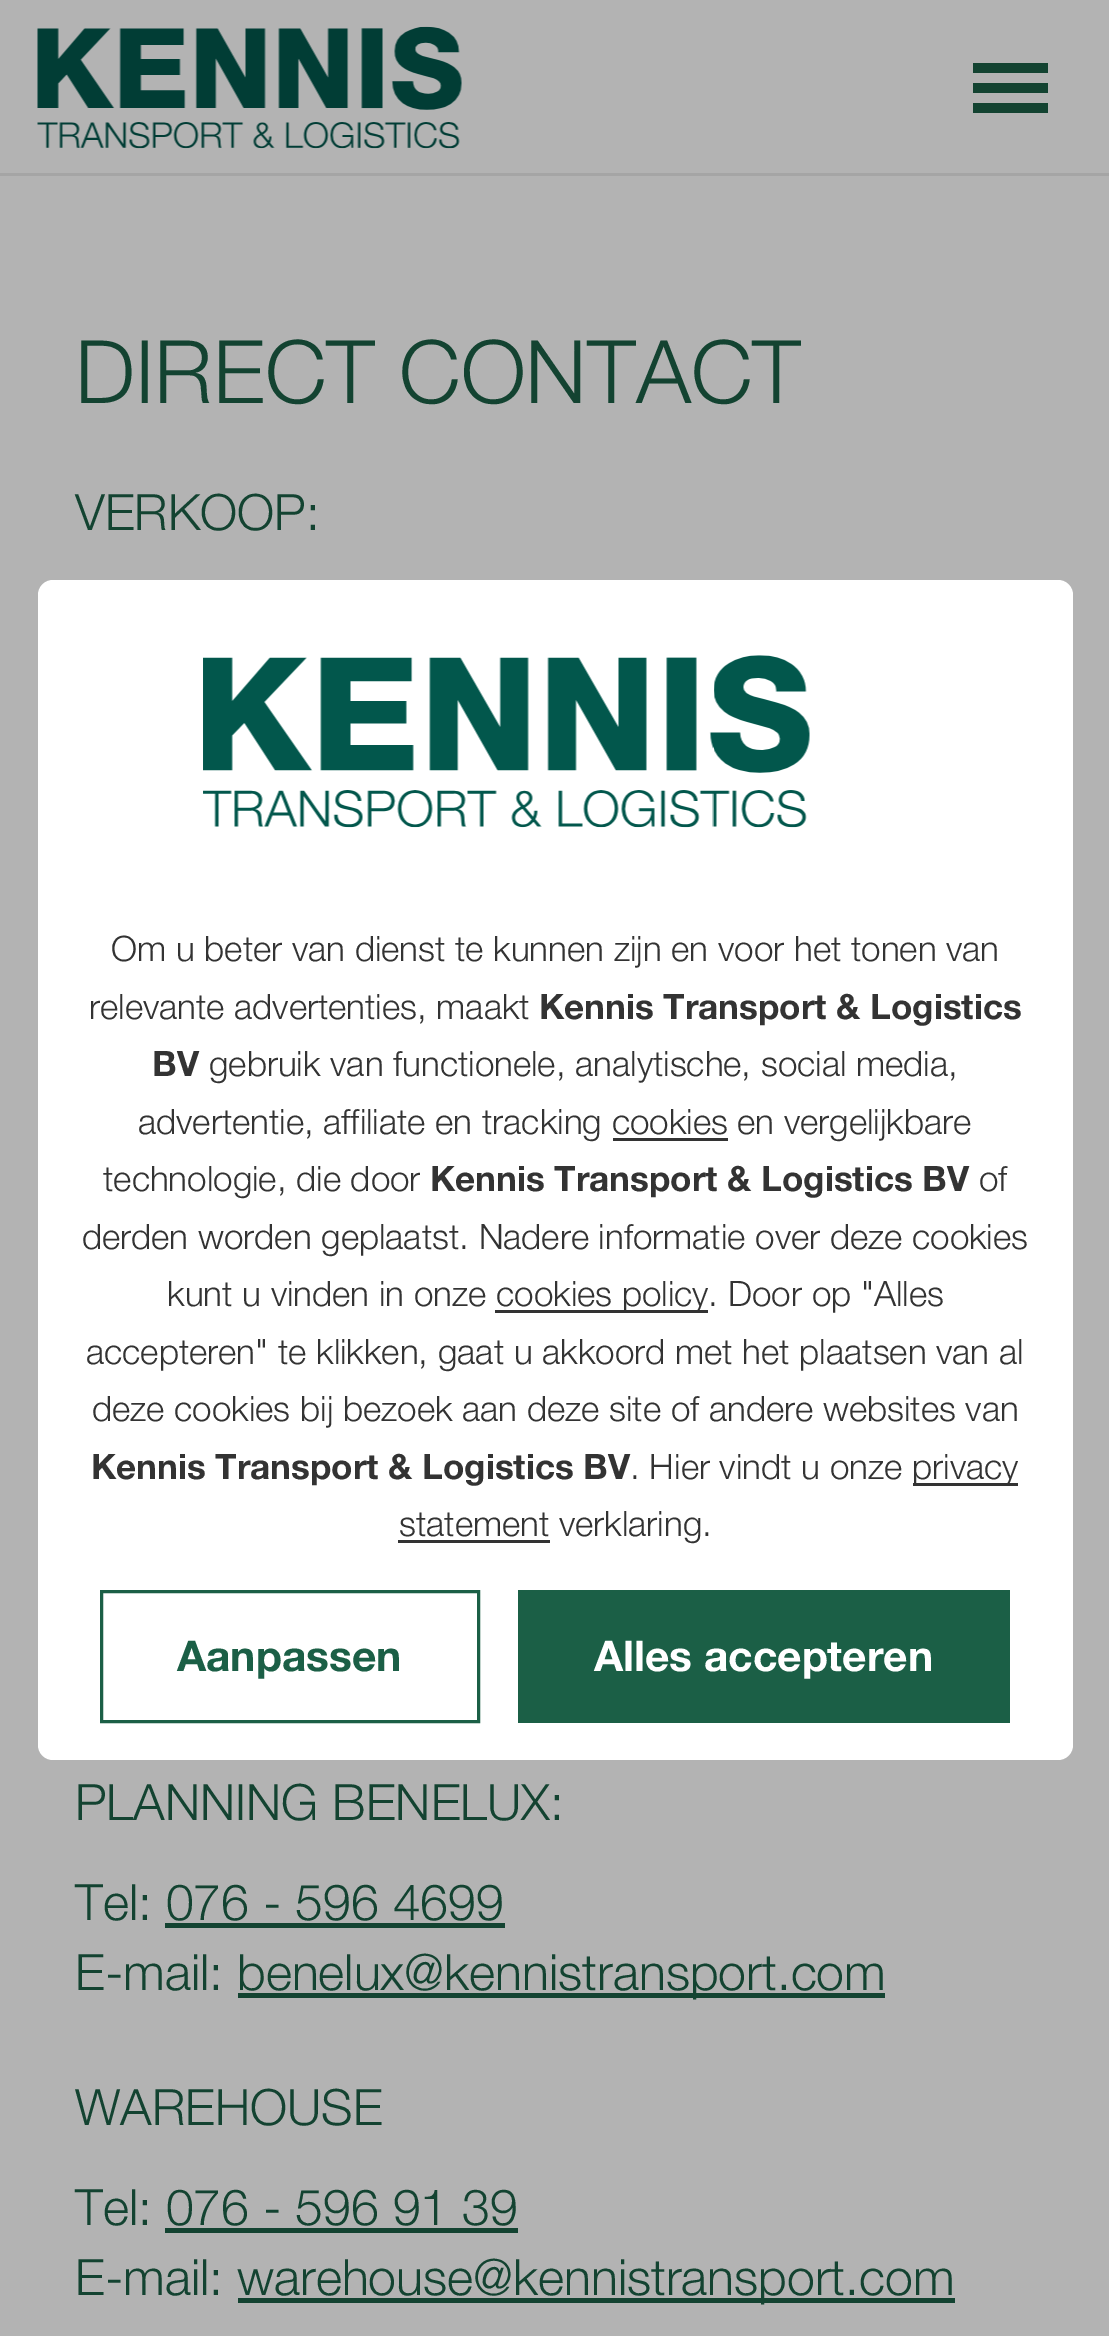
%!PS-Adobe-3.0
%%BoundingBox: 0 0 1109 2336
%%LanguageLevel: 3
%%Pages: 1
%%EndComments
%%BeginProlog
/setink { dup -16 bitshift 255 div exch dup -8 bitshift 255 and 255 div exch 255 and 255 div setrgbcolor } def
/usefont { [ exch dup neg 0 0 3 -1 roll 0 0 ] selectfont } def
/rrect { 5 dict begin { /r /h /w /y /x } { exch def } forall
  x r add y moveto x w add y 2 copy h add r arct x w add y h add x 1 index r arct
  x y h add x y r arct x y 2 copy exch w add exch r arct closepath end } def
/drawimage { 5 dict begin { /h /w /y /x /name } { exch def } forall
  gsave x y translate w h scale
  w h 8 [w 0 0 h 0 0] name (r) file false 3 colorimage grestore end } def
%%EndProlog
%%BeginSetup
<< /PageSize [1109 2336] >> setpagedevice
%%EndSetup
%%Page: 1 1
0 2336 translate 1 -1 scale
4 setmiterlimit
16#B3B3B3 setink
0 0 1109 2336 rectfill
16#A5A5A5 setink
0 173 1109 3 rectfill
(img1.raw) 37 26 425 123 drawimage
[
    [973 83 75 10 16#134331]
    [973 63 75 10 16#134331]
    [973 103 75 10 16#134331]
] { aload pop setink rectfill } forall
/HelveticaNeue-Light 87.5 usefont
75 403 moveto (DIRECT CONTACT) show
/HelveticaNeue-Light 50 usefont
[
    [(VERKOOP:) 75 530]
    [(PLANNING BENELUX:) 75 1820]
    [(Tel: 076 - 596 4699) 75 1920]
] { aload pop moveto show } forall
165 1923 340 5 rectfill
75 1990 moveto (E-mail:) show
238 1993 647 5 rectfill
[
    [(benelux@kennistransport.com) 237 1990]
    [(WAREHOUSE) 75 2125]
    [(Tel: 076 - 596 91 39) 75 2225]
] { aload pop moveto show } forall
165 2228 353 5 rectfill
75 2295 moveto (E-mail:) show
238 2298 717 5 rectfill
237 2295 moveto (warehouse@kennistransport.com) show
16#FFFFFF setink
38 580 1035 1180 15 rrect fill
(img2.raw) 203 655 607 173 drawimage
/HelveticaNeue-Light 35 usefont
16#333333 setink
111 961 moveto (Om u beter van dienst te kunnen zijn en voor het tonen van) show
89 1019 moveto (relevante advertenties, maakt) show
/HelveticaNeue-Bold 35 usefont
539 1019 moveto (Kennis Transport & Logistics) show
152 1076 moveto (BV) show
/HelveticaNeue-Light 35 usefont
209 1076 moveto (gebruik van functionele, analytische, social media,) show
138 1134 moveto (advertentie, affiliate en tracking cookies en vergelijkbare) show
613 1138 115 3 rectfill
103 1191 moveto (technologie, die door) show
/HelveticaNeue-Bold 35 usefont
430 1191 moveto (Kennis Transport & Logistics BV) show
/HelveticaNeue-Light 35 usefont
[
    [(of) 979 1191]
    [(derden worden geplaatst. Nadere informatie over deze cookies) 82 1249]
    [(kunt u vinden in onze) 167 1306]
] { aload pop moveto show } forall
495 1310 213 3 rectfill
[
    [(cookies policy. Door op "Alles) 496 1306]
    [(accepteren" te klikken, gaat u akkoord met het plaatsen van al) 86 1364]
    [(deze cookies bij bezoek aan deze site of andere websites van) 92 1421]
] { aload pop moveto show } forall
/HelveticaNeue-Bold 35 usefont
91 1479 moveto (Kennis Transport & Logistics BV) show
/HelveticaNeue-Light 35 usefont
630 1479 moveto (. Hier vindt u onze) show
913 1483 105 3 rectfill
912 1479 moveto (privacy) show
398 1540 152 3 rectfill
399 1536 moveto (statement verklaring.) show
16#1B5F46 setink
3 setlinewidth
101.5 1591.5 377 130 rectstroke
/HelveticaNeue-Bold 42.5 usefont
177 1671 moveto (Aanpassen) show
518 1590 492 133 rectfill
16#FFFFFF setink
594 1671 moveto (Alles accepteren) show
showpage
%%EOF
